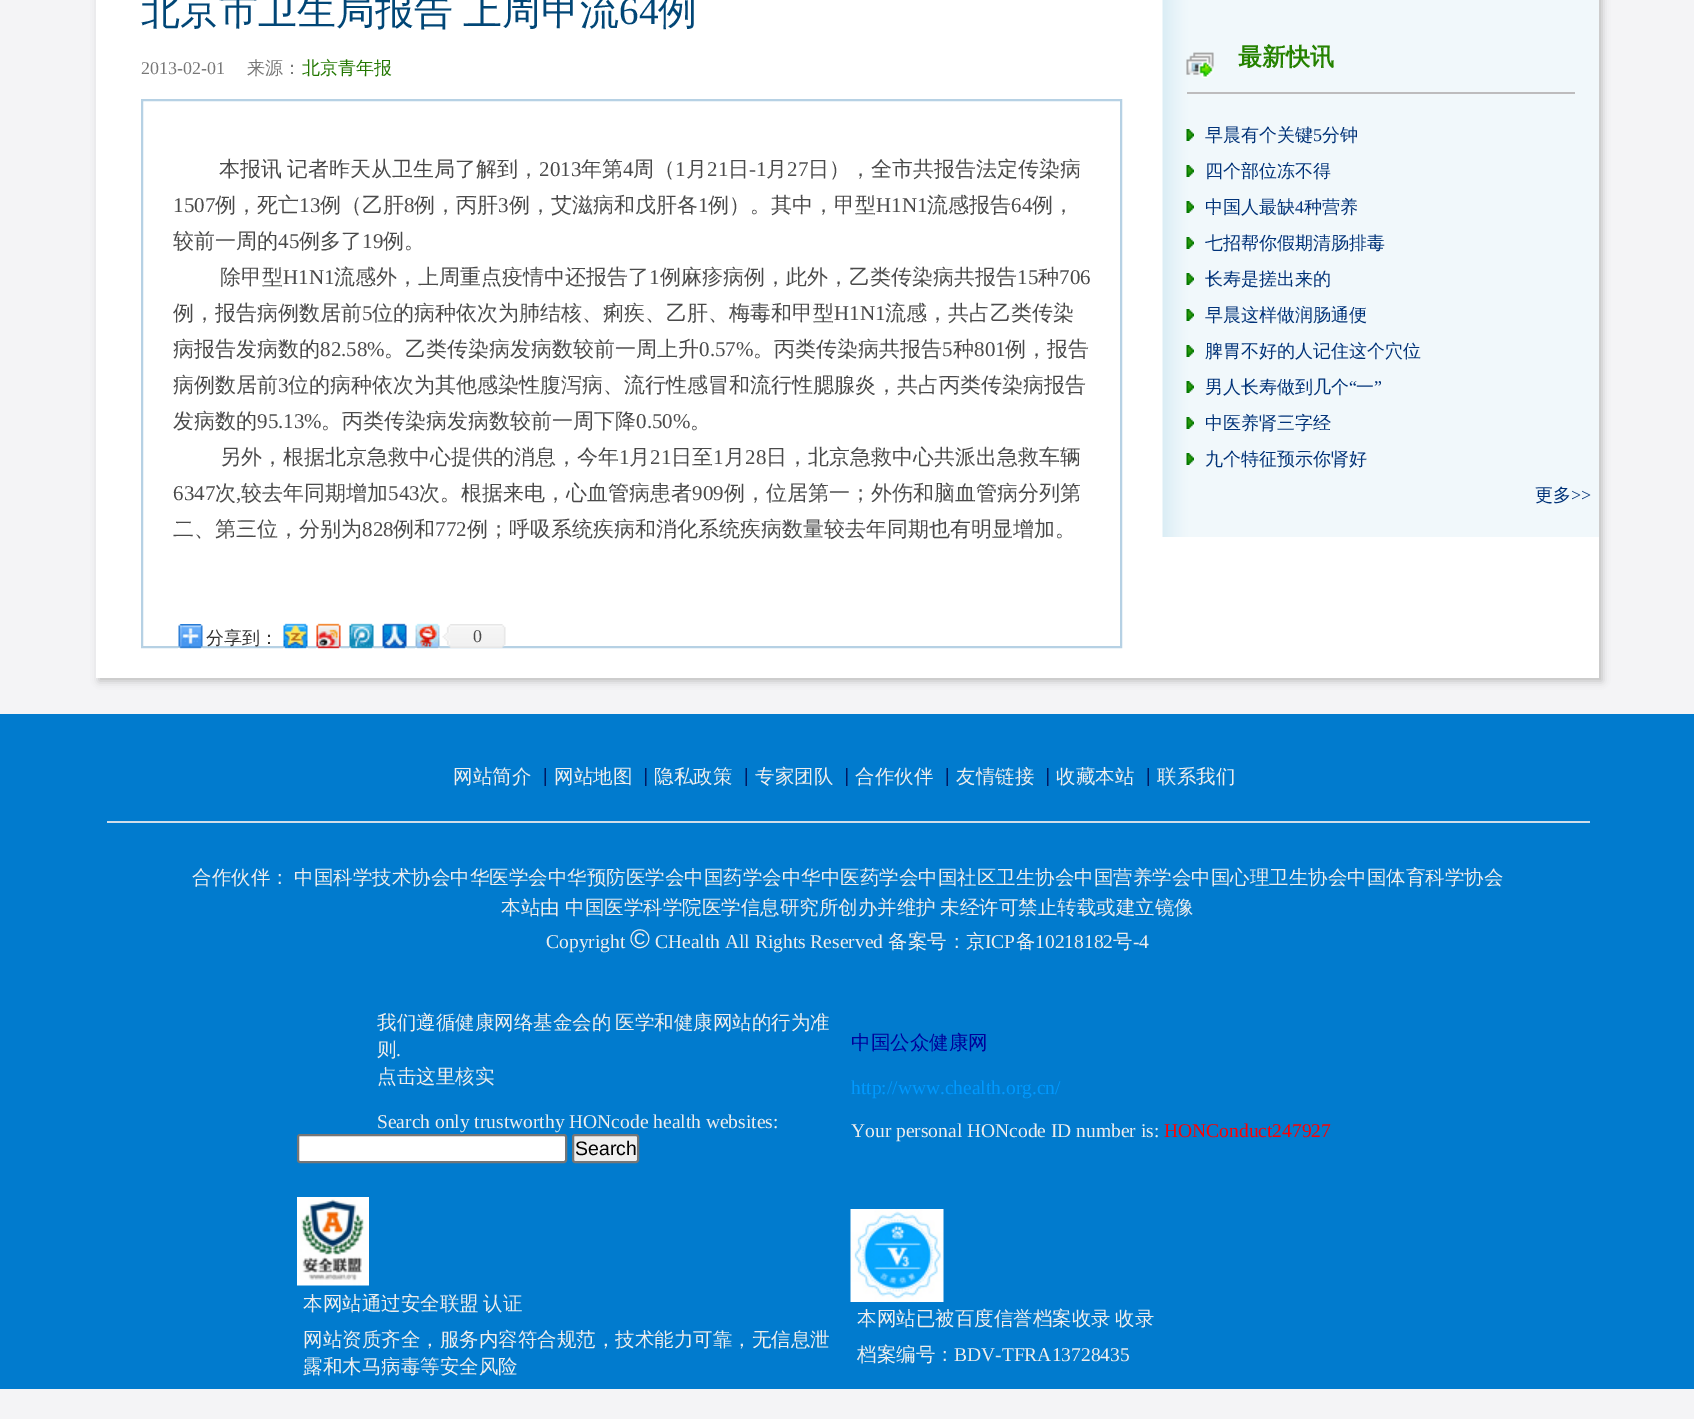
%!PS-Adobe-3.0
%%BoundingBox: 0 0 1694 1419
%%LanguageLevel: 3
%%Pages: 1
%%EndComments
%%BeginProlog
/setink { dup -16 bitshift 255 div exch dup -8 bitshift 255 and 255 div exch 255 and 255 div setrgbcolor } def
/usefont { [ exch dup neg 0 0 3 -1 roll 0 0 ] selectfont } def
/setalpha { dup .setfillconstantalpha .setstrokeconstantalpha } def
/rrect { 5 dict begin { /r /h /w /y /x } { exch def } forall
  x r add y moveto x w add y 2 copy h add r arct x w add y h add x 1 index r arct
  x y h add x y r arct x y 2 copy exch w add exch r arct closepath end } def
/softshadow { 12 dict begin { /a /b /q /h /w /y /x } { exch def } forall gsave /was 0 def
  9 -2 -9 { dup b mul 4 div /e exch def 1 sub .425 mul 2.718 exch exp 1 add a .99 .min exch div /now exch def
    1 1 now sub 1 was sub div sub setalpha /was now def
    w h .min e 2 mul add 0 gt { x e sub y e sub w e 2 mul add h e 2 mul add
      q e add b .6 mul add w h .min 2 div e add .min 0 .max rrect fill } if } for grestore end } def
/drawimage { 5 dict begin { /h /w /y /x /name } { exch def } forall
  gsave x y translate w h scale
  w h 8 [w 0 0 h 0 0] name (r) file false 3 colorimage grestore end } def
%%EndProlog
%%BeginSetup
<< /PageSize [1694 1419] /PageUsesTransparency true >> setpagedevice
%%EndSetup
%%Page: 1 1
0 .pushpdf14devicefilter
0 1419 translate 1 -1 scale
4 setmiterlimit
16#F4F4F6 setink
0 0 1694 1419 rectfill
16#BBBBBB setink
99 -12 1503 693 0 4 1 softshadow
16#FFFFFF setink
96 0 1503 678 rectfill
/WenQuanYiZenHei-Medium 39 usefont
16#014676 setink
141 24 moveto -2 0 32 (北京市卫生局报告 上周甲流) widthshow
/LiberationSerif-Regular 39 usefont
619 24 moveto (64) show
/WenQuanYiZenHei-Medium 39 usefont
658 24 moveto (例) show
/LiberationSerif-Regular 18 usefont
16#777777 setink
141 74 moveto (2013-02-01) show
/WenQuanYiZenHei-Medium 18 usefont
247 74 moveto (来源：) show
16#227700 setink
302 74 moveto (北京青年报) show
16#B6D1E4 setink
2 setlinewidth
142 100 979 547 rectstroke
/WenQuanYiZenHei-Medium 21 usefont
16#4A4A4A setink
219 176 moveto -1 0 32 (本报讯 记者昨天从卫生局了解到，) widthshow
/LiberationSerif-Regular 21 usefont
539 176 moveto (2013) show
/WenQuanYiZenHei-Medium 21 usefont
581 176 moveto (年第) show
/LiberationSerif-Regular 21 usefont
623 176 moveto (4) show
/WenQuanYiZenHei-Medium 21 usefont
633 176 moveto (周（) show
/LiberationSerif-Regular 21 usefont
675 176 moveto (1) show
/WenQuanYiZenHei-Medium 21 usefont
686 176 moveto (月) show
/LiberationSerif-Regular 21 usefont
707 176 moveto (21) show
/WenQuanYiZenHei-Medium 21 usefont
728 176 moveto (日) show
/LiberationSerif-Regular 21 usefont
749 176 moveto (-1) show
/WenQuanYiZenHei-Medium 21 usefont
766 176 moveto (月) show
/LiberationSerif-Regular 21 usefont
787 176 moveto (27) show
/WenQuanYiZenHei-Medium 21 usefont
808 176 moveto (日），全市共报告法定传染病) show
/LiberationSerif-Regular 21 usefont
173 212 moveto (1507) show
/WenQuanYiZenHei-Medium 21 usefont
215 212 moveto (例，死亡) show
/LiberationSerif-Regular 21 usefont
299 212 moveto (13) show
/WenQuanYiZenHei-Medium 21 usefont
320 212 moveto (例（乙肝) show
/LiberationSerif-Regular 21 usefont
404 212 moveto (8) show
/WenQuanYiZenHei-Medium 21 usefont
414 212 moveto (例，丙肝) show
/LiberationSerif-Regular 21 usefont
498 212 moveto (3) show
/WenQuanYiZenHei-Medium 21 usefont
509 212 moveto (例，艾滋病和戊肝各) show
/LiberationSerif-Regular 21 usefont
698 212 moveto (1) show
/WenQuanYiZenHei-Medium 21 usefont
708 212 moveto (例）。其中，甲型) show
/LiberationSerif-Regular 21 usefont
876 212 moveto (H1N1) show
/WenQuanYiZenHei-Medium 21 usefont
927 212 moveto (流感报告) show
/LiberationSerif-Regular 21 usefont
1011 212 moveto (64) show
/WenQuanYiZenHei-Medium 21 usefont
1032 212 moveto (例，) show
173 248 moveto (较前一周的) show
/LiberationSerif-Regular 21 usefont
278 248 moveto (45) show
/WenQuanYiZenHei-Medium 21 usefont
299 248 moveto (例多了) show
/LiberationSerif-Regular 21 usefont
362 248 moveto (19) show
/WenQuanYiZenHei-Medium 21 usefont
383 248 moveto (例。) show
220 284 moveto (除甲型) show
/LiberationSerif-Regular 21 usefont
283 284 moveto (H1N1) show
/WenQuanYiZenHei-Medium 21 usefont
334 284 moveto (流感外，上周重点疫情中还报告了) show
/LiberationSerif-Regular 21 usefont
649 284 moveto (1) show
/WenQuanYiZenHei-Medium 21 usefont
660 284 moveto (例麻疹病例，此外，乙类传染病共报告) show
/LiberationSerif-Regular 21 usefont
1017 284 moveto (15) show
/WenQuanYiZenHei-Medium 21 usefont
1038 284 moveto (种) show
/LiberationSerif-Regular 21 usefont
1059 284 moveto (706) show
/WenQuanYiZenHei-Medium 21 usefont
173 320 moveto (例，报告病例数居前) show
/LiberationSerif-Regular 21 usefont
362 320 moveto (5) show
/WenQuanYiZenHei-Medium 21 usefont
372 320 moveto (位的病种依次为肺结核、痢疾、乙肝、梅毒和甲型) show
/LiberationSerif-Regular 21 usefont
834 320 moveto (H1N1) show
/WenQuanYiZenHei-Medium 21 usefont
885 320 moveto (流感，共占乙类传染) show
173 356 moveto (病报告发病数的) show
/LiberationSerif-Regular 21 usefont
320 356 moveto (82.58%) show
/WenQuanYiZenHei-Medium 21 usefont
384 356 moveto (。乙类传染病发病数较前一周上升) show
/LiberationSerif-Regular 21 usefont
699 356 moveto (0.57%) show
/WenQuanYiZenHei-Medium 21 usefont
753 356 moveto (。丙类传染病共报告) show
/LiberationSerif-Regular 21 usefont
942 356 moveto (5) show
/WenQuanYiZenHei-Medium 21 usefont
953 356 moveto (种) show
/LiberationSerif-Regular 21 usefont
974 356 moveto (801) show
/WenQuanYiZenHei-Medium 21 usefont
1005 356 moveto (例，报告) show
173 392 moveto (病例数居前) show
/LiberationSerif-Regular 21 usefont
278 392 moveto (3) show
/WenQuanYiZenHei-Medium 21 usefont
288 392 moveto (位的病种依次为其他感染性腹泻病、流行性感冒和流行性腮腺炎，共占丙类传染病报告) show
173 428 moveto (发病数的) show
/LiberationSerif-Regular 21 usefont
257 428 moveto (95.13%) show
/WenQuanYiZenHei-Medium 21 usefont
321 428 moveto (。丙类传染病发病数较前一周下降) show
/LiberationSerif-Regular 21 usefont
636 428 moveto (0.50%) show
/WenQuanYiZenHei-Medium 21 usefont
690 428 moveto (。) show
220 464 moveto (另外，根据北京急救中心提供的消息，今年) show
/LiberationSerif-Regular 21 usefont
619 464 moveto (1) show
/WenQuanYiZenHei-Medium 21 usefont
629 464 moveto (月) show
/LiberationSerif-Regular 21 usefont
650 464 moveto (21) show
/WenQuanYiZenHei-Medium 21 usefont
671 464 moveto (日至) show
/LiberationSerif-Regular 21 usefont
713 464 moveto (1) show
/WenQuanYiZenHei-Medium 21 usefont
724 464 moveto (月) show
/LiberationSerif-Regular 21 usefont
745 464 moveto (28) show
/WenQuanYiZenHei-Medium 21 usefont
766 464 moveto (日，北京急救中心共派出急救车辆) show
/LiberationSerif-Regular 21 usefont
173 500 moveto (6347) show
/WenQuanYiZenHei-Medium 21 usefont
215 500 moveto (次) show
/LiberationSerif-Regular 21 usefont
236 500 moveto (,) show
/WenQuanYiZenHei-Medium 21 usefont
241 500 moveto (较去年同期增加) show
/LiberationSerif-Regular 21 usefont
388 500 moveto (543) show
/WenQuanYiZenHei-Medium 21 usefont
419 500 moveto (次。根据来电，心血管病患者) show
/LiberationSerif-Regular 21 usefont
692 500 moveto (909) show
/WenQuanYiZenHei-Medium 21 usefont
724 500 moveto (例，位居第一；外伤和脑血管病分列第) show
173 536 moveto (二、第三位，分别为) show
/LiberationSerif-Regular 21 usefont
362 536 moveto (828) show
/WenQuanYiZenHei-Medium 21 usefont
393 536 moveto (例和) show
/LiberationSerif-Regular 21 usefont
435 536 moveto (772) show
/WenQuanYiZenHei-Medium 21 usefont
467 536 moveto (例；呼吸系统疾病和消化系统疾病数量较去年同期也有明显增加。) show
(img1.raw) 178 624 25 25 drawimage
/WenQuanYiZenHei-Medium 18 usefont
16#333333 setink
206 644 moveto (分享到：) show
(img2.raw) 283 623 25 26 drawimage
(img3.raw) 316 623 25 26 drawimage
(img4.raw) 349 623 25 26 drawimage
(img5.raw) 382 623 25 26 drawimage
(img6.raw) 415 623 25 26 drawimage
(img7.raw) 442 624 64 24 drawimage
/LiberationSerif-Regular 18 usefont
16#4A4A4A setink
473 642 moveto (0) show
(img8.raw) 1162 0 437 537 drawimage
16#BDBCBD setink
1187 92 388 2 rectfill
(img9.raw) 1186 52 28 26 drawimage
/WenQuanYiZenHei-Bold 24 usefont
16#258200 setink
1238 65 moveto (最新快讯) show
(img10.raw) 1186 129 8 12 drawimage
/WenQuanYiZenHei-Medium 18 usefont
16#003278 setink
1205 141 moveto (早晨有个关键) show
/LiberationSerif-Regular 18 usefont
1313 141 moveto (5) show
/WenQuanYiZenHei-Medium 18 usefont
1322 141 moveto (分钟) show
(img10.raw) 1186 165 8 12 drawimage
1205 177 moveto (四个部位冻不得) show
(img10.raw) 1186 201 8 12 drawimage
1205 213 moveto (中国人最缺) show
/LiberationSerif-Regular 18 usefont
1295 213 moveto (4) show
/WenQuanYiZenHei-Medium 18 usefont
1304 213 moveto (种营养) show
(img10.raw) 1186 237 8 12 drawimage
1205 249 moveto (七招帮你假期清肠排毒) show
(img10.raw) 1186 273 8 12 drawimage
1205 285 moveto (长寿是搓出来的) show
(img10.raw) 1186 309 8 12 drawimage
1205 321 moveto (早晨这样做润肠通便) show
(img10.raw) 1186 345 8 12 drawimage
1205 357 moveto (脾胃不好的人记住这个穴位) show
(img10.raw) 1186 381 8 12 drawimage
1205 393 moveto (男人长寿做到几个) show
/LiberationSerif-Regular 18 usefont
1349 393 moveto (“) show
/WenQuanYiZenHei-Medium 18 usefont
1356 393 moveto (一) show
/LiberationSerif-Regular 18 usefont
1374 393 moveto (”) show
(img10.raw) 1186 417 8 12 drawimage
/WenQuanYiZenHei-Medium 18 usefont
1205 429 moveto (中医养肾三字经) show
(img10.raw) 1186 453 8 12 drawimage
1205 465 moveto (九个特征预示你肾好) show
1535 501 moveto (更多) show
/LiberationSerif-Regular 18 usefont
1571 501 moveto (>>) show
16#017BCE setink
0 714 1694 675 rectfill
16#D0DDEA setink
107 821 1483 2 rectfill
/WenQuanYiZenHei-Medium 19.5 usefont
16#EEEEEE setink
453 783 moveto (网站简介) show
(img11.raw) 544 768 2 18 drawimage
554 783 moveto (网站地图) show
(img12.raw) 645 768 2 18 drawimage
654 783 moveto (隐私政策) show
(img11.raw) 745 768 2 18 drawimage
755 783 moveto (专家团队) show
(img12.raw) 846 768 2 18 drawimage
855 783 moveto (合作伙伴) show
(img11.raw) 946 768 2 18 drawimage
956 783 moveto (友情链接) show
(img12.raw) 1047 768 2 18 drawimage
1056 783 moveto (收藏本站) show
(img11.raw) 1147 768 2 18 drawimage
[
    [(联系我们) 1157 783]
    [(合作伙伴：) 192 884]
    [(中国科学技术协会中华医学会中华预防医学会中国药学会中华中医药学会中国社区卫生协会中国营养学会中国心理卫生协会中国体育科学协会) 294 884]
    [(本站由) 501 914]
    [(中国医学科学院医学信息研究所创办并维护) 565 914]
    [(未经许可禁止转载或建立镜像) 940 914]
] { aload pop moveto show } forall
/LiberationSerif-Regular 19.5 usefont
546 948 moveto (Copyright) show
/LiberationSans-Regular 27 usefont
630 948 moveto (©) show
/LiberationSerif-Regular 19.5 usefont
655 948 moveto (CHealth All Rights Reserved) show
/WenQuanYiZenHei-Medium 19.5 usefont
888 948 moveto (备案号：京) show
/LiberationSerif-Regular 19.5 usefont
985 948 moveto (ICP) show
/WenQuanYiZenHei-Medium 19.5 usefont
1016 948 moveto (备) show
/LiberationSerif-Regular 19.5 usefont
1035 948 moveto (10218182) show
/WenQuanYiZenHei-Medium 19.5 usefont
1113 948 moveto (号) show
/LiberationSerif-Regular 19.5 usefont
1133 948 moveto (-4) show
/WenQuanYiZenHei-Medium 19.5 usefont
[
    [(我们遵循健康网络基金会的) 377 1029]
    [(医学和健康网站的行为准) 615 1029]
    [(则) 377 1056]
] { aload pop moveto show } forall
/LiberationSerif-Regular 19.5 usefont
396 1056 moveto (.) show
/WenQuanYiZenHei-Medium 19.5 usefont
377 1083 moveto (点击这里核实) show
/LiberationSerif-Regular 19.5 usefont
377 1128 moveto (Search only trustworthy HONcode health websites:) show
16#FFFFFF setink
298 1135 268 27 2 rrect gsave fill grestore
16#767676 setink
stroke
16#EFEFEF setink
573 1135 65 27 2 rrect gsave fill grestore
16#767676 setink
stroke
/LiberationSans-Regular 19.5 usefont
16#000000 setink
575 1155 moveto (Search) show
/WenQuanYiZenHei-Medium 19.5 usefont
16#000099 setink
851 1049 moveto (中国公众健康网) show
/LiberationSerif-Regular 19.5 usefont
16#0099FF setink
851 1094 moveto (http://www.chealth.org.cn/) show
16#EEEEEE setink
851 1137 moveto (Your personal HONcode ID number is:) show
16#FF0000 setink
1164 1137 moveto (HONConduct247927) show
(img13.raw) 297 1197 72 89 drawimage
/WenQuanYiZenHei-Medium 19.5 usefont
16#EEEEEE setink
[
    [(本网站通过安全联盟) 303 1310]
    [(认证) 483 1310]
    [(网站资质齐全，服务内容符合规范，技术能力可靠，无信息泄) 303 1346]
    [(露和木马病毒等安全风险) 303 1373]
] { aload pop moveto show } forall
(img14.raw) 850 1209 94 93 drawimage
[
    [(本网站已被百度信誉档案收录) 857 1325]
    [(收录) 1115 1325]
    [(档案编号：) 857 1361]
] { aload pop moveto show } forall
/LiberationSerif-Regular 19.5 usefont
954 1361 moveto (BDV-TFRA13728435) show
.poppdf14devicefilter showpage
%%EOF
